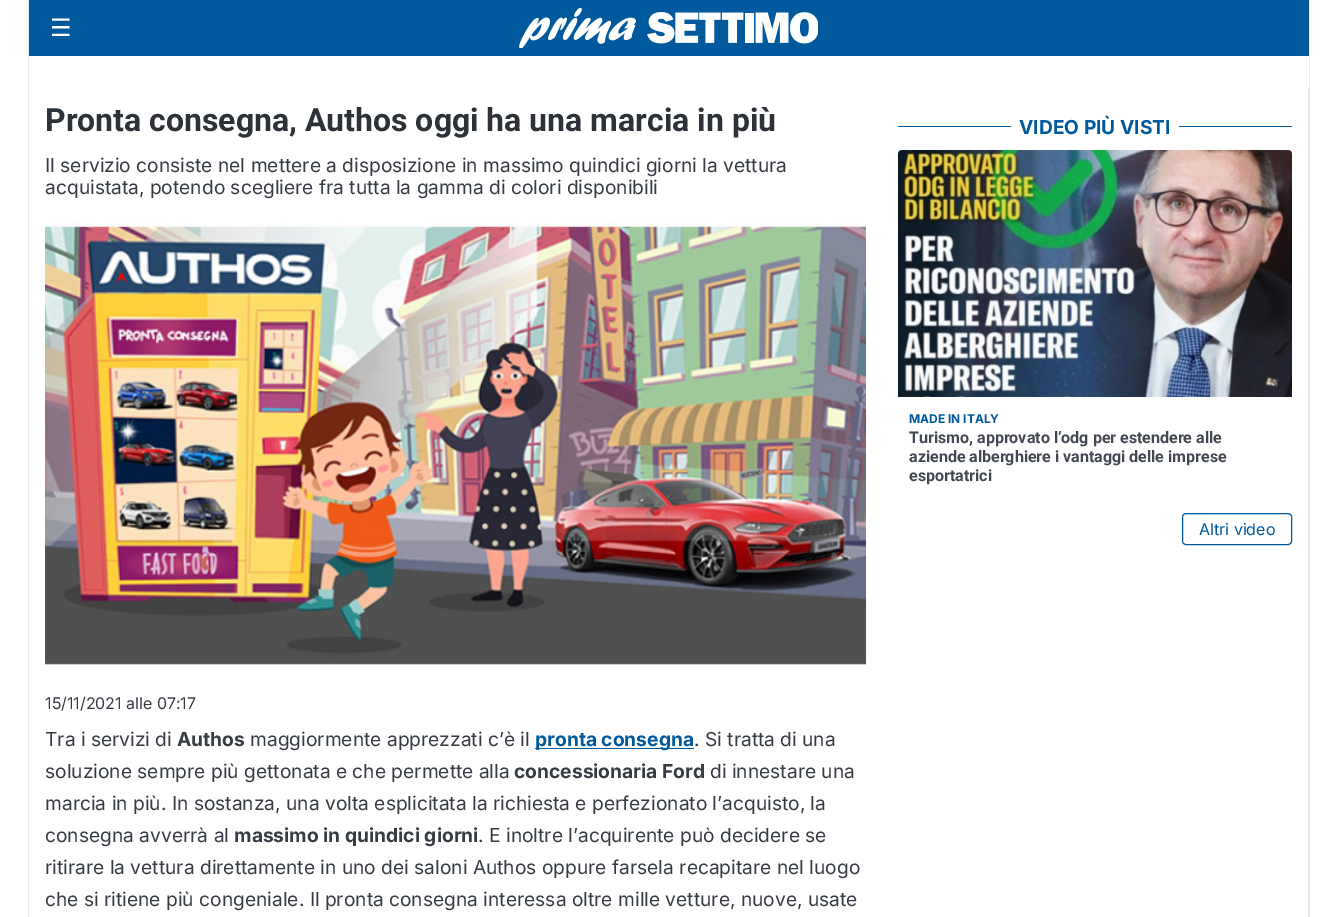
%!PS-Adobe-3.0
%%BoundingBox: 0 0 1337 917
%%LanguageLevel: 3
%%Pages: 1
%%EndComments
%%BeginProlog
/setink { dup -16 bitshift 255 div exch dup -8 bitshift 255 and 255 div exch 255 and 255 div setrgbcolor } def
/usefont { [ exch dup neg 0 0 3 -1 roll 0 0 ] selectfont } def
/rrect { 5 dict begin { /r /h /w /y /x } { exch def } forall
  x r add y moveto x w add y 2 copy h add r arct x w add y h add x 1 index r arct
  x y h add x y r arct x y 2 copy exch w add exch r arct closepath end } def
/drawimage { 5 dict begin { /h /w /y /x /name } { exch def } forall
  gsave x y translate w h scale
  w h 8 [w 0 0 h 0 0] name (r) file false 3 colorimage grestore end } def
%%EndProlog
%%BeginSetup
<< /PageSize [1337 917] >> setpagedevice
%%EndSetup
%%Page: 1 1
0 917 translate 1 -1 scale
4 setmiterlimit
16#FFFFFF setink
0 0 1337 917 rectfill
[
    [1309 0 1 917 16#E7EAF0]
    [28 0 1 917 16#E7EAF0]
    [29 0 1280 56 16#00599C]
] { aload pop setink rectfill } forall
/DejaVuSans-Regular 24 usefont
16#FFFFFF setink
50 36 moveto (☰) show
(img1.raw) 519 8 299 40 drawimage
/Roboto-Bold 32 usefont
16#2D3138 setink
45 131 moveto (Pronta consegna, Authos oggi ha una marcia in più) show
/Inter-Regular 19.2 usefont
16#373C44 setink
45 172 moveto (Il servizio consiste nel mettere a disposizione in massimo quindici giorni la vettura) show
45 194 moveto (acquistata, potendo scegliere fra tutta la gamma di colori disponibili) show
(img2.raw) 45 218 821 447 drawimage
/Inter-Regular 16 usefont
45 709 moveto (15/11/2021 alle 07:17) show
/Inter-Regular 19.2 usefont
45 746 moveto (Tra i servizi di) show
/Inter-Bold 19.2 usefont
177 746 moveto (Authos) show
/Inter-Regular 19.2 usefont
250 746 moveto (maggiormente apprezzati c’è il) show
16#00599C setink
535 748 159 1 rectfill
/Inter-Bold 19.2 usefont
535 746 moveto (pronta consegna) show
/Inter-Regular 19.2 usefont
16#373C44 setink
694 746 moveto (. Si tratta di una) show
45 778 moveto (soluzione sempre più gettonata e che permette alla) show
/Inter-Bold 19.2 usefont
514 778 moveto (concessionaria Ford) show
/Inter-Regular 19.2 usefont
[
    [(di innestare una) 710 778]
    [(marcia in più. In sostanza, una volta esplicitata la richiesta e perfezionato l’acquisto, la) 45 810]
    [(consegna avverrà al) 45 842]
] { aload pop moveto show } forall
/Inter-Bold 19.2 usefont
234 842 moveto (massimo in quindici giorni) show
/Inter-Regular 19.2 usefont
[
    [(. E inoltre l’acquirente può decidere se) 478 842]
    [(ritirare la vettura direttamente in uno dei saloni Authos oppure farsela recapitare nel luogo) 45 874]
    [(che si ritiene più congeniale. Il pronta consegna interessa oltre mille vetture, nuove, usate) 45 906]
] { aload pop moveto show } forall
[
    [1308 88 1 829 16#E7EAF0]
    [898 126 394 1 16#00599C]
    [1011 126 168 1 16#FFFFFF]
] { aload pop setink rectfill } forall
/Inter-Bold 19.2 usefont
16#00599C setink
1019 134 moveto (VIDEO PIÙ VISTI) show
(img3.raw) 898 150 394 247 drawimage
/Inter-Bold 12 usefont
909 423 moveto (MADE IN ITALY) show
/Roboto-Bold 16 usefont
16#424751 setink
[
    [(Turismo, approvato l’odg per estendere alle) 909 443]
    [(aziende alberghiere i vantaggi delle imprese) 909 462]
    [(esportatrici) 909 481]
] { aload pop moveto show } forall
16#00599C setink
1182.5 513.5 109 31 3.5 rrect stroke
/Inter-Regular 16 usefont
1199 535 moveto (Altri video) show
showpage
%%EOF
